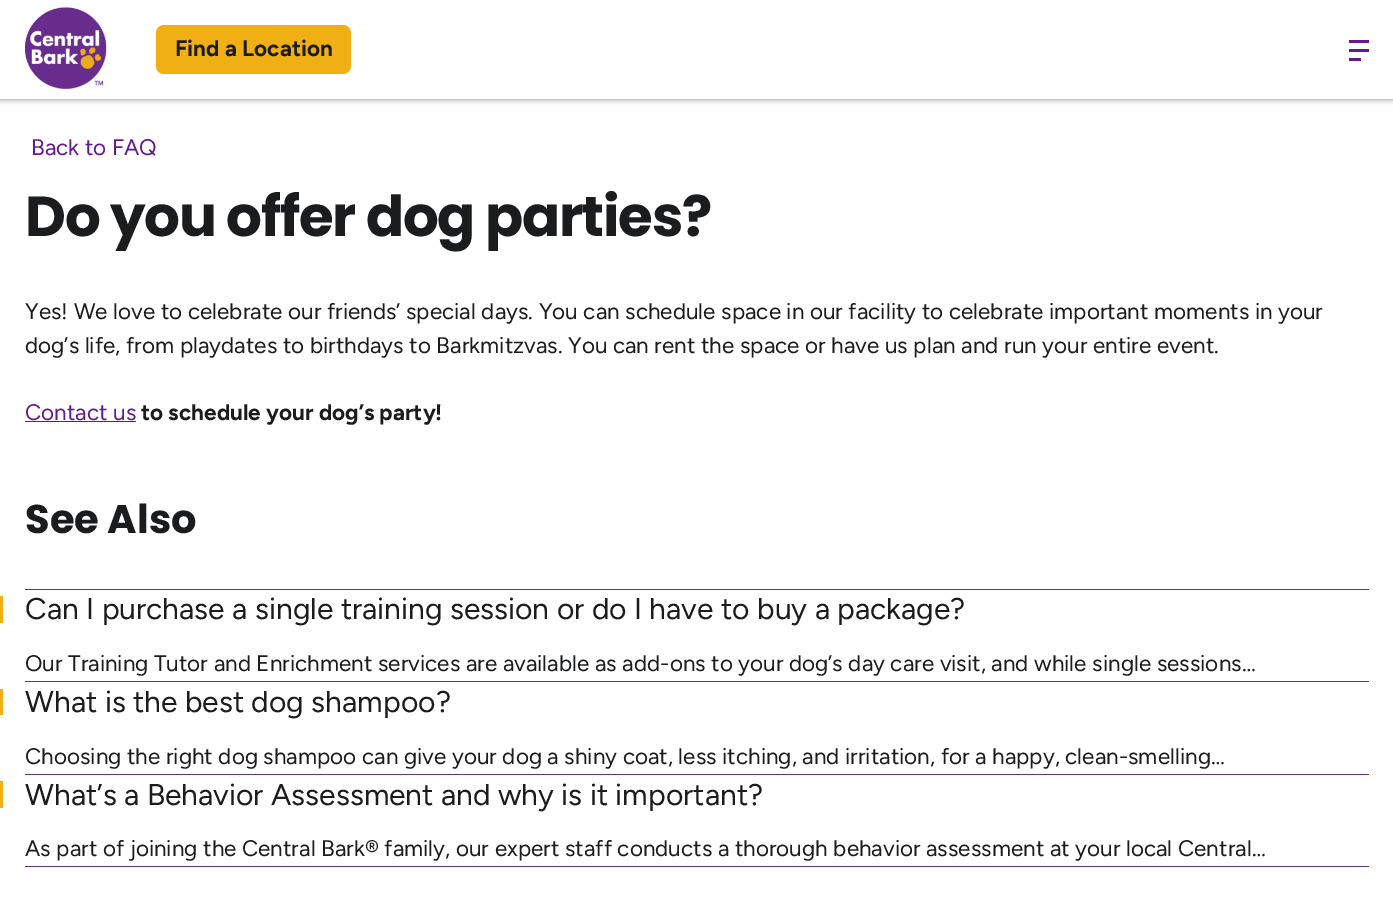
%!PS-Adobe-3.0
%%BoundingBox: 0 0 1393 901
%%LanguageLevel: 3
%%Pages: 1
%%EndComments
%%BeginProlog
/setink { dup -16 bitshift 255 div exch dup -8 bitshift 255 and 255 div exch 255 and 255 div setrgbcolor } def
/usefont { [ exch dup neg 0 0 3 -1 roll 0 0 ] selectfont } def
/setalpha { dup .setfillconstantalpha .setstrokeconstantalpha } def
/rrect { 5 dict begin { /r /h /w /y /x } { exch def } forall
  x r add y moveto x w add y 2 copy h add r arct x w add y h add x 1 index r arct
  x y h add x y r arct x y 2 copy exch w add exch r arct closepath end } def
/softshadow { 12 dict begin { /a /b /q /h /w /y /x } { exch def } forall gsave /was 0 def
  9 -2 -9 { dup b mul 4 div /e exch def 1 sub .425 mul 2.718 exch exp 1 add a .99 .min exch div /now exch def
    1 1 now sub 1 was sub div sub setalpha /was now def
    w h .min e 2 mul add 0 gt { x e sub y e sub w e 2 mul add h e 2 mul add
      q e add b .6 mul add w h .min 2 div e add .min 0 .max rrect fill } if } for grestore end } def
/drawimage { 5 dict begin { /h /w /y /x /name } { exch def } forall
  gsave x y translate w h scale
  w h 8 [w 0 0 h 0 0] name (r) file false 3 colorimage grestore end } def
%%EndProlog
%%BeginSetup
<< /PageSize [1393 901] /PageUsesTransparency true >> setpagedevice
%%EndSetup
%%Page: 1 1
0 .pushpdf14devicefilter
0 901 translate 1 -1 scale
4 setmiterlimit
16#FFFFFF setink
0 0 1393 901 rectfill
16#000000 setink
0 0 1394 99 0 3 0.5 softshadow
16#FFFFFF setink
0 0 1393 99 rectfill
(img1.raw) 25 7 82 82 drawimage
16#F0AF13 setink
156 25 195 49 8 rrect fill
/Figtree-Bold 22.5 usefont
16#1B1C1E setink
175 56 moveto (Find a Location) show
[
    [1349 40 20 3 16#641A8F]
    [1349 49 20 3 16#641A8F]
    [1349 58 12 3 16#641A8F]
] { aload pop setink rectfill } forall
/Figtree-Regular 22.5 usefont
31 155 moveto (Back to FAQ) show
/Poppins-Bold 56.25 usefont
16#1B1C1E setink
25 236 moveto -1.25 0 (Do you offer dog parties?) ashow
/Figtree-Regular 22.5 usefont
25 319 moveto (Yes! We love to celebrate our friends’ special days. You can schedule space in our facility to celebrate important moments in your) show
25 353 moveto (dog’s life, from playdates to birthdays to Barkmitzvas. You can rent the space or have us plan and run your entire event.) show
16#641A8F setink
25 420 moveto (Contact us) show
25 421 111 1 rectfill
/Figtree-Bold 22.5 usefont
16#1B1C1E setink
141 420 moveto (to schedule your dog’s party!) show
/Poppins-Bold 40 usefont
25 533 moveto (See Also) show
[
    [25 589 1344 1 16#5F3484]
    [25 681 1344 1 16#5F3484]
    [0 596 3 27 16#F0AF13]
] { aload pop setink rectfill } forall
/Figtree-Regular 30 usefont
16#1B1C1E setink
25 619 moveto (Can I purchase a single training session or do I have to buy a package?) show
/Figtree-Regular 22.5 usefont
25 671 moveto (Our Training Tutor and Enrichment services are available as add-ons to your dog’s day care visit, and while single sessions…) show
16#5F3484 setink
25 774 1344 1 rectfill
16#F0AF13 setink
0 689 3 26 rectfill
/Figtree-Regular 30 usefont
16#1B1C1E setink
25 712 moveto (What is the best dog shampoo?) show
/Figtree-Regular 22.5 usefont
25 764 moveto (Choosing the right dog shampoo can give your dog a shiny coat, less itching, and irritation, for a happy, clean-smelling…) show
16#5F3484 setink
25 866 1344 1 rectfill
16#F0AF13 setink
0 781 3 27 rectfill
/Figtree-Regular 30 usefont
16#1B1C1E setink
25 805 moveto (What’s a Behavior Assessment and why is it important?) show
/Figtree-Regular 22.5 usefont
25 856 moveto (As part of joining the Central Bark® family, our expert staff conducts a thorough behavior assessment at your local Central…) show
.poppdf14devicefilter showpage
%%EOF
